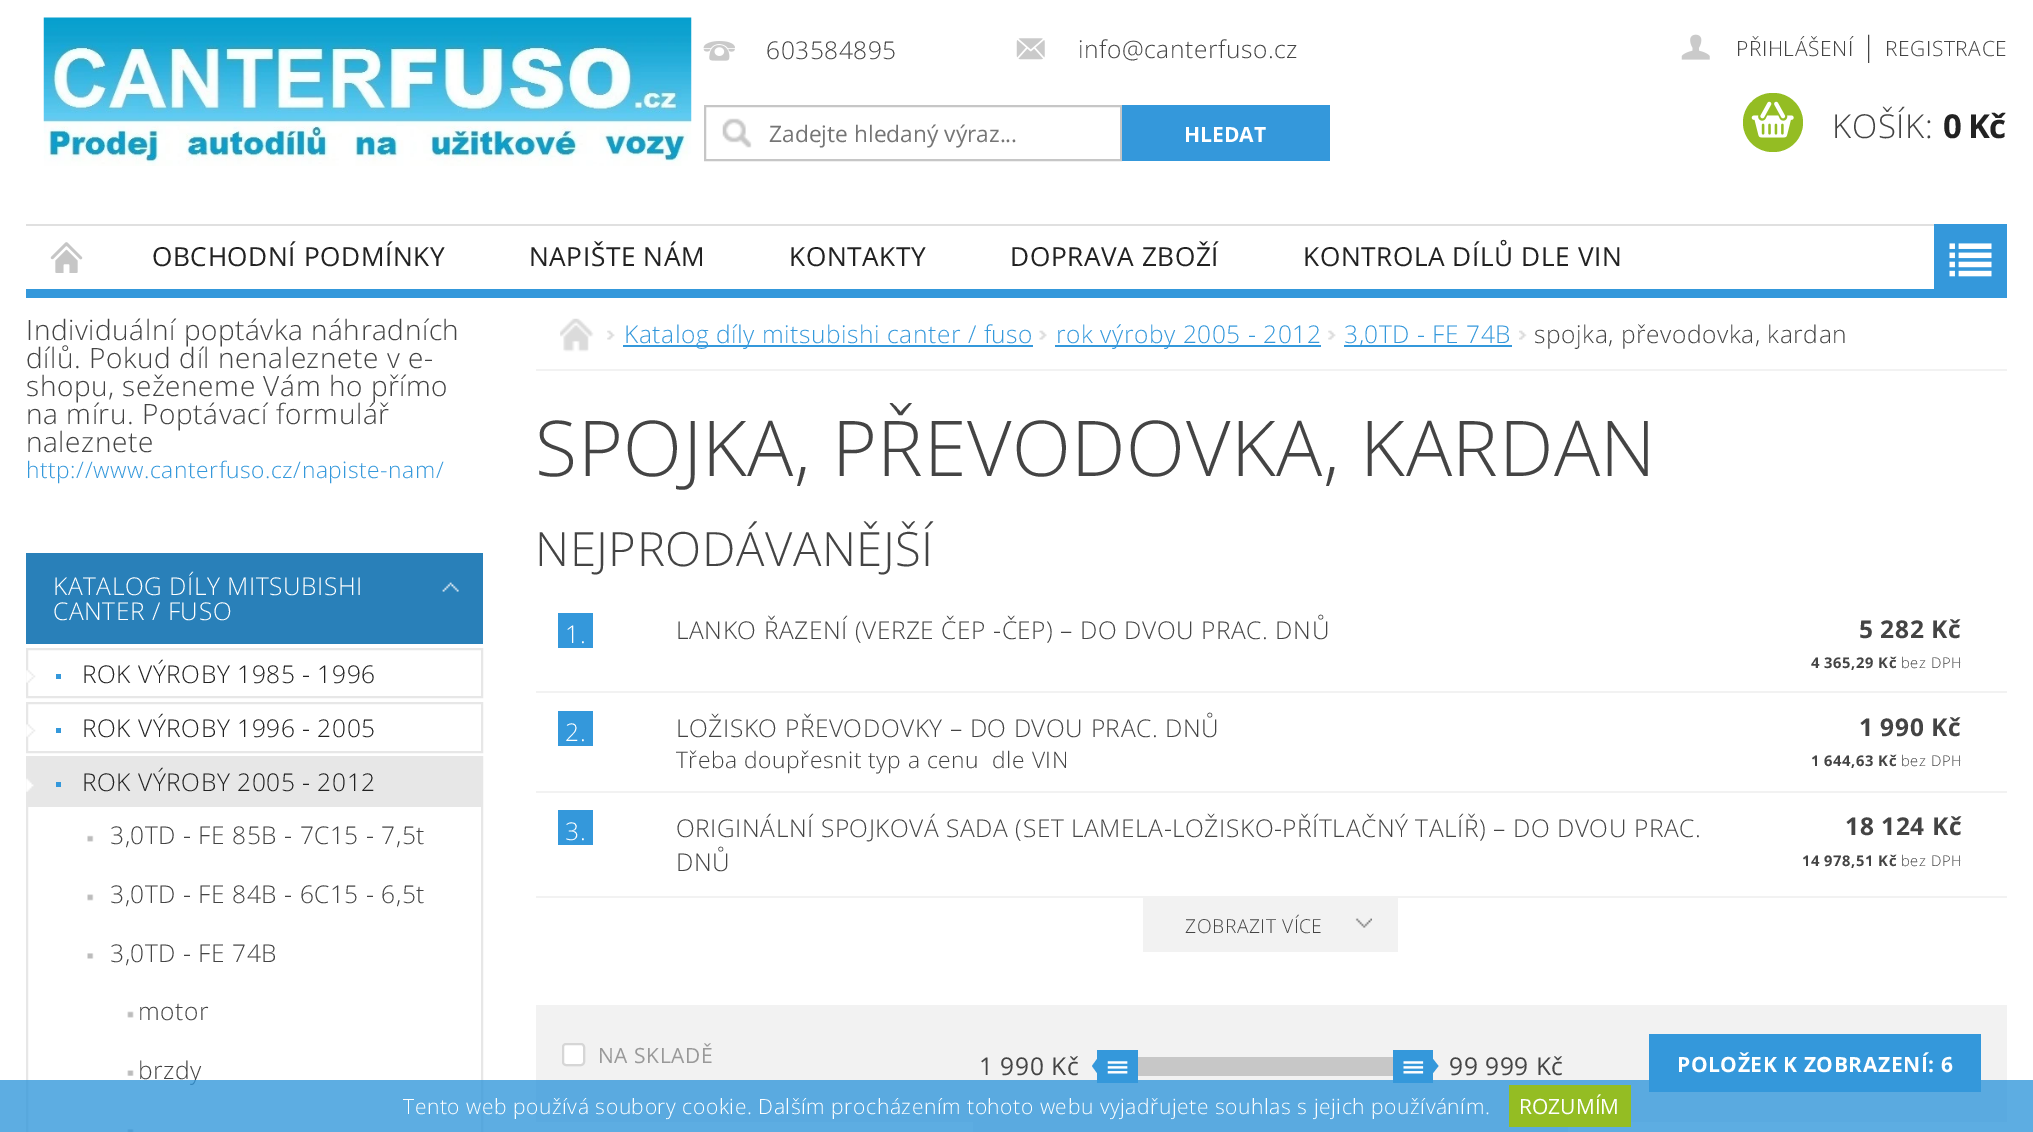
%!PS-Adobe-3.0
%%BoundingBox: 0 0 2033 1132
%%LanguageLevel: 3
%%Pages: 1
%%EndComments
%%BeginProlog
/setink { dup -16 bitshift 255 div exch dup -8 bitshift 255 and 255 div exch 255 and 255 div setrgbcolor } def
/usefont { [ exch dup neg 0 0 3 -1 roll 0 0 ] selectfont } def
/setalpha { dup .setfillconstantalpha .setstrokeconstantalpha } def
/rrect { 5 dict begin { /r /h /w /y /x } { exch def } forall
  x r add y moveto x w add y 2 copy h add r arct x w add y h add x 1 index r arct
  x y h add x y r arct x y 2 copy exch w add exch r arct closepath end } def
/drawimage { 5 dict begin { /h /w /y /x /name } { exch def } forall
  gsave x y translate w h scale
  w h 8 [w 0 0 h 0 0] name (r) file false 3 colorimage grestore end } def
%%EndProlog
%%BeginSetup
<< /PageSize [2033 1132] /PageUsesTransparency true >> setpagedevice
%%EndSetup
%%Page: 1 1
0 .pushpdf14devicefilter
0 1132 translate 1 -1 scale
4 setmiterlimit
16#FFFFFF setink
0 0 2033 1132 rectfill
16#3498DB setink
26 289 1908 9 rectfill
(img1.raw) 43 17 649 149 drawimage
(img2.raw) 703 41 32 20 drawimage
/OpenSans-Light 24.5 usefont
16#444444 setink
766 59 moveto 0.56 0 (603584895) ashow
(img3.raw) 1016 38 29 22 drawimage
1078 58 moveto 0.56 0 (info@canterfuso.cz) ashow
(img4.raw) 722 118 30 30 drawimage
16#C6C6C6 setink
2 setlinewidth
705 106 416 54 rectstroke
/OpenSans-Regular 22.75 usefont
16#757575 setink
769 142 moveto (Zadejte hledaný výraz...) show
16#3498DB setink
1122 105 208 56 rectfill
/OpenSans-Bold 21 usefont
16#FFFFFF setink
1184 142 moveto (HLEDAT) show
(img5.raw) 1681 34 29 26 drawimage
/OpenSans-Light 21 usefont
16#444444 setink
1736 56 moveto 0.56 0 (PŘIHLÁŠENÍ) ashow
/OpenSans-Light 28 usefont
1861 56 moveto 0.56 0 (|) ashow
/OpenSans-Light 21 usefont
1885 56 moveto 0.56 0 (REGISTRACE) ashow
16#94BD23 setink
1743 93 60 59 29.5 rrect fill
(img6.raw) 1751 101 43 37 drawimage
/OpenSans-Light 33 usefont
16#444444 setink
1832 138 moveto 0.56 0 (KOŠÍK:) ashow
/OpenSans-Bold 33 usefont
16#222222 setink
1943 138 moveto -1 0 (0 Kč) ashow
16#E0E0E0 setink
26 224 1908 2 rectfill
(img7.raw) 50 242 33 31 drawimage
/OpenSans-Regular 26.25 usefont
16#222222 setink
152 266 moveto 0.56 0 (OBCHODNÍ PODMÍNKY) ashow
529 266 moveto 0.56 0 (NAPIŠTE NÁM) ashow
789 266 moveto 0.56 0 (KONTAKTY) ashow
1010 266 moveto 0.56 0 (DOPRAVA ZBOŽÍ) ashow
1303 266 moveto 0.56 0 (KONTROLA DÍLŮ DLE VIN) ashow
16#3498DB setink
1934 224 73 74 rectfill
(img8.raw) 1949 243 43 34 drawimage
/OpenSans-Light 28 usefont
16#444444 setink
26 340 moveto 0.56 0 (Individuální poptávka náhradních) ashow
26 368 moveto 0.56 0 (dílů. Pokud díl nenaleznete v e-) ashow
26 396 moveto 0.56 0 (shopu, seženeme Vám ho přímo) ashow
26 424 moveto 0.56 0 (na míru. Poptávací formulář) ashow
26 452 moveto 0.56 0 (naleznete) ashow
/OpenSans-Light 22.75 usefont
16#3498DB setink
26 478 moveto 0.56 0 (http://www.canterfuso.cz/napiste-nam/) ashow
16#2980B9 setink
26 553 457 91 rectfill
(img9.raw) 442 582 17 10 drawimage
/OpenSans-Light 24.5 usefont
16#FFFFFF setink
53 595 moveto 0.56 0 (KATALOG DÍLY MITSUBISHI) ashow
53 620 moveto 0.56 0 (CANTER / FUSO) ashow
16#E7E7E7 setink
27 649 455 48 rectstroke
(img10.raw) 26 669 10 15 drawimage
16#3498DB setink
56 674 5 5 rectfill
16#222222 setink
82 683 moveto 0.56 0 (ROK VÝROBY 1985 - 1996) ashow
16#E7E7E7 setink
27 703 455 49 rectstroke
(img11.raw) 26 723 10 15 drawimage
16#3498DB setink
56 728 5 5 rectfill
16#222222 setink
82 737 moveto 0.56 0 (ROK VÝROBY 1996 - 2005) ashow
16#E7E7E7 setink
27 757 455 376 rectstroke
28 758 453 49 rectfill
(img12.raw) 26 778 8 14 drawimage
16#3498DB setink
56 782 5 5 rectfill
16#222222 setink
82 791 moveto 0.56 0 (ROK VÝROBY 2005 - 2012) ashow
(img13.raw) 87 835 7 7 drawimage
16#444444 setink
110 844 moveto 0.56 0 (3,0TD - FE 85B - 7C15 - 7,5t) ashow
(img14.raw) 87 894 7 7 drawimage
110 903 moveto 0.56 0 (3,0TD - FE 84B - 6C15 - 6,5t) ashow
(img15.raw) 87 953 7 6 drawimage
110 962 moveto 0.56 0 (3,0TD - FE 74B) ashow
(img16.raw) 127 1011 7 7 drawimage
138 1020 moveto 0.56 0 (motor) ashow
(img17.raw) 127 1070 7 6 drawimage
138 1079 moveto 0.56 0 (brzdy) ashow
(img18.raw) 127 1129 7 3 drawimage
16#F2F2F2 setink
536 369 1471 2 rectfill
(img19.raw) 560 318 34 34 drawimage
(img20.raw) 607 330 8 10 drawimage
16#3498DB setink
623 345 410 2 rectfill
624 343 moveto 0.56 0 (Katalog díly mitsubishi canter / fuso) ashow
(img21.raw) 1039 330 8 10 drawimage
1055 345 266 2 rectfill
1056 343 moveto 0.56 0 (rok výroby 2005 - 2012) ashow
(img22.raw) 1328 330 8 10 drawimage
1344 345 168 2 rectfill
1344 343 moveto 0.56 0 (3,0TD - FE 74B) ashow
(img23.raw) 1519 330 8 10 drawimage
16#444444 setink
1534 343 moveto 0.56 0 (spojka, převodovka, kardan) ashow
/OpenSans-Light 77 usefont
535 476 moveto 0.56 0 (SPOJKA, PŘEVODOVKA, KARDAN) ashow
/OpenSans-Light 47.25 usefont
535 566 moveto 0.56 0 (NEJPRODÁVANĚJŠÍ) ashow
16#F2F2F2 setink
536 691 1471 2 rectfill
16#3498DB setink
558 613 35 35 rectfill
/OpenSans-Light 24.5 usefont
16#FFFFFF setink
565 643 moveto 0.56 0 (1.) ashow
16#444444 setink
676 639 moveto 0.56 0 (LANKO ŘAZENÍ \(VERZE ČEP -ČEP\) – DO DVOU PRAC. DNŮ) ashow
/OpenSans-Bold 24.5 usefont
1859 638 moveto 0.56 0 (5 282 Kč) ashow
/OpenSans-Bold 14.75 usefont
1811 668 moveto 0.56 0 (4 365,29 Kč) ashow
/OpenSans-Light 14.75 usefont
1901 668 moveto 0.56 0 (bez DPH) ashow
16#F2F2F2 setink
536 791 1471 2 rectfill
16#3498DB setink
558 711 35 35 rectfill
/OpenSans-Light 24.5 usefont
16#FFFFFF setink
565 741 moveto 0.56 0 (2.) ashow
16#444444 setink
676 737 moveto 0.56 0 (LOŽISKO PŘEVODOVKY – DO DVOU PRAC. DNŮ) ashow
/OpenSans-Light 22.75 usefont
676 768 moveto 0.56 0 (Třeba doupřesnit typ a cenu  dle VIN) ashow
/OpenSans-Bold 24.5 usefont
1859 736 moveto 0.56 0 (1 990 Kč) ashow
/OpenSans-Bold 14.75 usefont
1811 766 moveto 0.56 0 (1 644,63 Kč) ashow
/OpenSans-Light 14.75 usefont
1901 766 moveto 0.56 0 (bez DPH) ashow
16#F2F2F2 setink
536 896 1471 2 rectfill
16#3498DB setink
558 810 35 35 rectfill
/OpenSans-Light 24.5 usefont
16#FFFFFF setink
565 840 moveto 0.56 0 (3.) ashow
16#444444 setink
676 837 moveto 0.56 0 (ORIGINÁLNÍ SPOJKOVÁ SADA \(SET LAMELA-LOŽISKO-PŘÍTLAČNÝ TALÍŘ\) – DO DVOU PRAC.) ashow
676 871 moveto 0.56 0 (DNŮ) ashow
/OpenSans-Bold 24.5 usefont
1845 835 moveto 0.56 0 (18 124 Kč) ashow
/OpenSans-Bold 14.75 usefont
1802 866 moveto 0.56 0 (14 978,51 Kč) ashow
/OpenSans-Light 14.75 usefont
1901 866 moveto 0.56 0 (bez DPH) ashow
16#F2F2F2 setink
1143 898 255 54 rectfill
(img24.raw) 1355 918 17 10 drawimage
/OpenSans-Light 19.25 usefont
16#444444 setink
1185 933 moveto 0.56 0 (ZOBRAZIT VÍCE) ashow
16#F2F2F2 setink
536 1005 1471 117 rectfill
16#FFFFFF setink
562 1043 23 23 4 rrect fill
0.3 setalpha
16#767676 setink
563 1044 21 21 3 rrect stroke
/OpenSans-Regular 21 usefont
1 setalpha
16#999999 setink
598 1063 moveto 0.56 0 (NA SKLADĚ) ashow
/OpenSans-Regular 24.5 usefont
16#444444 setink
979 1075 moveto 0.56 0 (1 990 Kč) ashow
16#3498DB setink
1097 1050 41 33 rectfill
1097 1059 moveto 1097 1073 lineto 1092 1066 lineto closepath fill
(img25.raw) 1107 1061 21 13 drawimage
16#C7C7C7 setink
1138 1057 255 19 rectfill
16#3498DB setink
1393 1050 40 33 rectfill
(img26.raw) 1403 1061 21 13 drawimage
1433 1073 moveto 1433 1059 lineto 1438.5 1066 lineto closepath fill
16#444444 setink
1449 1075 moveto 0.56 0 (99 999 Kč) ashow
16#3498DB setink
1649 1034 332 58 rectfill
/OpenSans-Bold 21 usefont
16#FFFFFF setink
1677 1072 moveto 0.56 0 (POLOŽEK K ZOBRAZENÍ: 6) ashow
16#F2F2F2 setink
973 1122 595 10 rectfill
0.8 setalpha
16#3498DB setink
0 1080 2033 52 rectfill
/OpenSans-Light 21 usefont
1 setalpha
16#FFFFFF setink
403 1114 moveto 0.56 0 (Tento web používá soubory cookie. Dalším procházením tohoto webu vyjadřujete souhlas s jejich používáním.) ashow
16#94BD23 setink
1509 1085 122 42 rectfill
/OpenSans-Regular 21 usefont
16#FFFFFF setink
1519 1114 moveto (ROZUMÍM) show
.poppdf14devicefilter showpage
%%EOF
